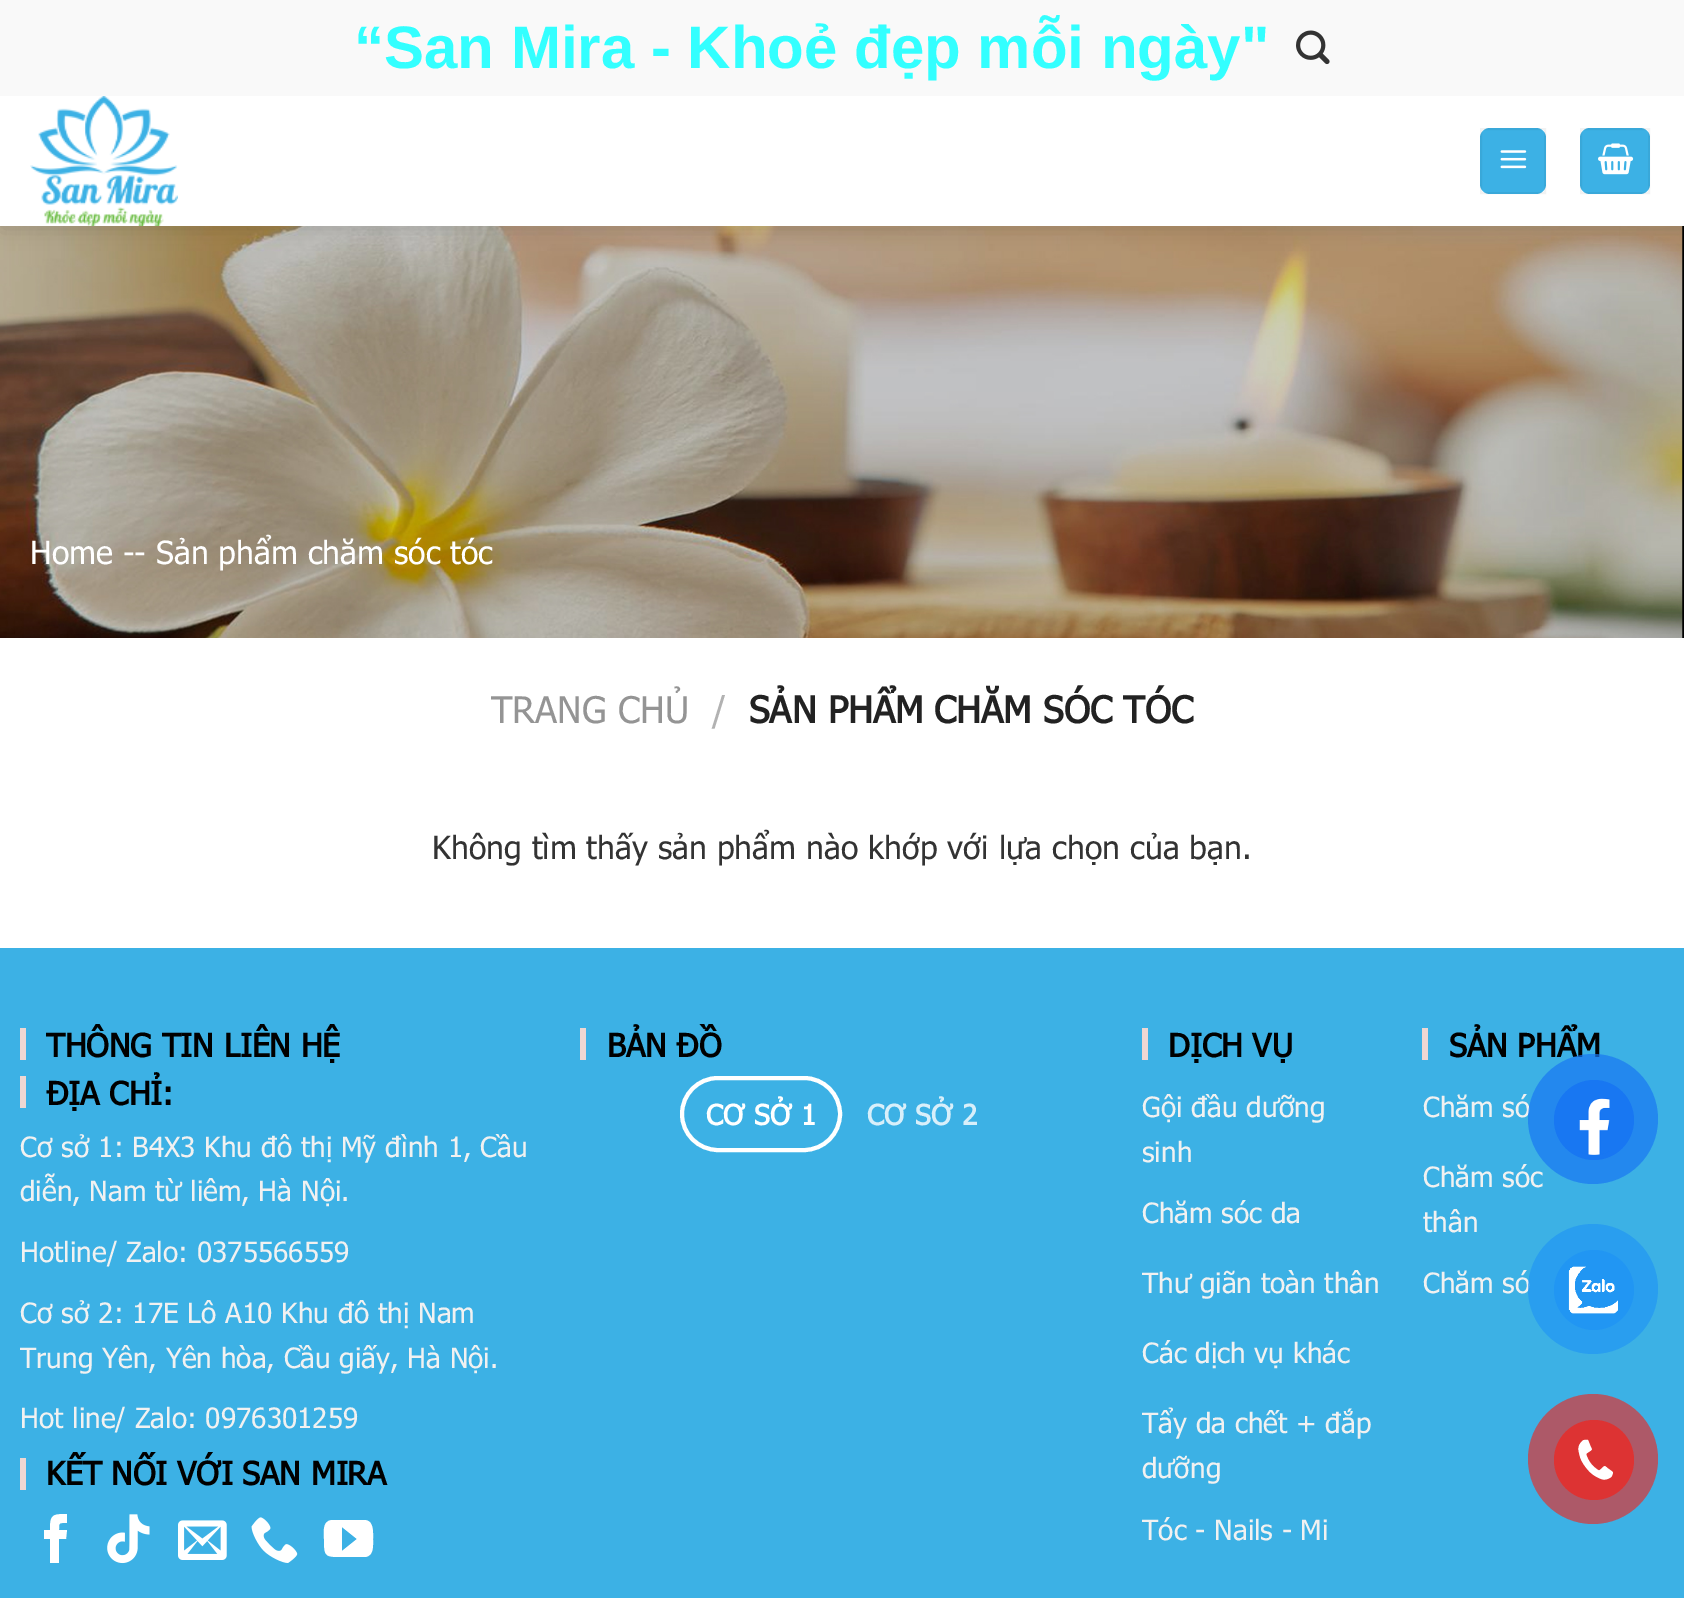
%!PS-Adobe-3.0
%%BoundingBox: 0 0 1684 1598
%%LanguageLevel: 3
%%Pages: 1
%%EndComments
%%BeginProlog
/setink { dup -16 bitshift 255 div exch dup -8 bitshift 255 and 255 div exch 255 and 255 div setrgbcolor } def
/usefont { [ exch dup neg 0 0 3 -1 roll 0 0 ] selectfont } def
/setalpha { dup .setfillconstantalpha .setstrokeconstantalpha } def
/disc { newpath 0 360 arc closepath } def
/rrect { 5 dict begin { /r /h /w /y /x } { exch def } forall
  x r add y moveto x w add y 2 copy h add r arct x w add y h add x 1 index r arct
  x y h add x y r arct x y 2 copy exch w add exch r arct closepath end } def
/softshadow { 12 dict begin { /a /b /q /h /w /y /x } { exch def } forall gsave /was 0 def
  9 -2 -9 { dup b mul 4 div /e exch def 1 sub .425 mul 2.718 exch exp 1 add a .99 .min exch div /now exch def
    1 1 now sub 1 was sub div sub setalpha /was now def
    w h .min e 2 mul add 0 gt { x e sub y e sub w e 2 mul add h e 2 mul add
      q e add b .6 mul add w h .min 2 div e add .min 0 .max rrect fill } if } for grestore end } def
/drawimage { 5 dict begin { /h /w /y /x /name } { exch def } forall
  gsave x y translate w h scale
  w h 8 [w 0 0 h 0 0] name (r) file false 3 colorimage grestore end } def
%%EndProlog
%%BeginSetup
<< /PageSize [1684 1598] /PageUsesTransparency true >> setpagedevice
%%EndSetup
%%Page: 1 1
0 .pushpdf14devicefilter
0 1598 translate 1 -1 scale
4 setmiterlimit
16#FFFFFF setink
0 0 1684 1598 rectfill
(img5.raw) 0 226 1684 412 drawimage
16#000000 setink
2 2 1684 226 0 10 0.15 softshadow
16#F9F9F9 setink
0 0 1684 96 rectfill
/LiberationSans-Bold 60 usefont
16#33FFFF setink
354 68 moveto (“San Mira - Khoẻ đẹp mỗi ngày") show
(img1.raw) 1296 30 34 35 drawimage
16#FFFFFF setink
0 96 1684 130 rectfill
(img2.raw) 30 96 148 130 drawimage
16#3CB1E5 setink
1480 128 66 66 10 rrect fill
0.05 setalpha
16#000000 setink
2 setlinewidth
1481 129 64 64 rectstroke
1 setalpha
(img3.raw) 1500 150 27 19 drawimage
16#3CB1E5 setink
1580 128 70 66 10 rrect fill
0.05 setalpha
16#000000 setink
1581 129 68 64 rectstroke
1 setalpha
(img4.raw) 1598 143 36 32 drawimage
/Tahoma-Regular 32 usefont
16#FFFFFF setink
30 564 moveto (Home -- Sản phẩm chăm sóc tóc) show
/Tahoma-Regular 36.75 usefont
16#949494 setink
491 723 moveto (TRANG CHỦ) show
16#B2B2B2 setink
712 723 moveto (/) show
/Tahoma-Bold 36.75 usefont
16#222222 setink
749 723 moveto (SẢN PHẨM CHĂM SÓC TÓC) show
/Tahoma-Regular 32 usefont
16#333333 setink
432 859 moveto (Không tìm thấy sản phẩm nào khớp với lựa chọn của bạn.) show
16#3CB1E5 setink
0 948 1684 650 rectfill
16#EED7D3 setink
20 1028 6 32 rectfill
/Tahoma-Bold 32 usefont
16#000000 setink
46 1057 moveto (THÔNG TIN LIÊN HỆ) show
16#EED7D3 setink
20 1076 6 32 rectfill
16#000000 setink
46 1105 moveto (ĐỊA CHỈ:) show
/Tahoma-Regular 28 usefont
16#F1F1F1 setink
[
    [(Cơ sở 1: B4X3 Khu đô thị Mỹ đình 1, Cầu) 20 1157]
    [(diễn, Nam từ liêm, Hà Nội.) 20 1201]
    [(Hotline/ Zalo: 0375566559) 20 1262]
    [(Cơ sở 2: 17E Lô A10 Khu đô thị Nam) 20 1323]
    [(Trung Yên, Yên hòa, Cầu giấy, Hà Nội.) 20 1368]
    [(Hot line/ Zalo: 0976301259) 20 1428]
] { aload pop moveto show } forall
16#EED7D3 setink
20 1458 6 32 rectfill
/Tahoma-Bold 32 usefont
16#000000 setink
46 1485 moveto (KẾT NỐI VỚI SAN MIRA) show
16#FFFFFF setink
59 1563 moveto 50 1563 lineto 50 1539 lineto 44 1539 lineto 44 1530 lineto 50 1530 lineto 50 1515 52 1514 67 1514 curveto 67 1523 lineto 59 1523 59 1522 59 1530 curveto 67 1530 lineto 66 1539 lineto 59 1539 lineto closepath fill
(img6.raw) 107 1514 43 50 drawimage
(img7.raw) 178 1520 49 40 drawimage
(img8.raw) 251 1517 47 46 drawimage
364 1520 moveto 332 1520 lineto 322 1521 324 1532 324 1539 curveto 324 1557 325 1557 343 1557 curveto 365 1557 lineto 374 1556 373 1546 373 1539 curveto 373 1532 374 1520 364 1520 curveto closepath 342 1551 moveto 342 1527 lineto 357 1539 lineto closepath fill
16#EED7D3 setink
580 1028 6 32 rectfill
16#000000 setink
607 1057 moveto (BẢN ĐỒ) show
16#FFFFFF setink
4 setlinewidth
682 1078 158 72 36 rrect stroke
/Tahoma-Bold 28 usefont
706 1125 moveto 0.5 0 (CƠ SỞ 1) ashow
16#D8EFFA setink
867 1125 moveto 0.5 0 (CƠ SỞ 2) ashow
16#EED7D3 setink
1142 1028 6 32 rectfill
/Tahoma-Bold 32 usefont
16#000000 setink
1168 1057 moveto (DỊCH VỤ) show
/Tahoma-Regular 28 usefont
16#F1F1F1 setink
[
    [(Gội đầu dưỡng) 1142 1117]
    [(sinh) 1142 1162]
    [(Chăm sóc da) 1142 1223]
    [(Thư giãn toàn thân) 1142 1293]
    [(Các dịch vụ khác) 1142 1363]
    [(Tẩy da chết + đắp) 1142 1433]
    [(dưỡng) 1142 1478]
    [(Tóc - Nails - Mi) 1142 1540]
] { aload pop moveto show } forall
16#EED7D3 setink
1422 1028 6 32 rectfill
/Tahoma-Bold 32 usefont
16#000000 setink
1449 1057 moveto (SẢN PHẨM) show
/Tahoma-Regular 28 usefont
16#F1F1F1 setink
[
    [(Chăm só) 1423 1117]
    [(Chăm sóc) 1423 1187]
    [(thân) 1423 1232]
    [(Chăm só) 1423 1293]
] { aload pop moveto show } forall
0.7 setalpha
16#1877F2 setink
1593 1119 65 disc fill
1 setalpha
1594 1120 40 disc fill
(img9.raw) 1579 1098 31 57 drawimage
0.7 setalpha
16#2196F3 setink
1593 1289 65 disc fill
1 setalpha
1594 1290 40 disc fill
(img10.raw) 1568 1266 50 48 drawimage
16#AD5968 setink
1593 1459 65 disc fill
16#DD3333 setink
1594 1460 40 disc fill
(img11.raw) 1578 1439 35 41 drawimage
.poppdf14devicefilter showpage
%%EOF
